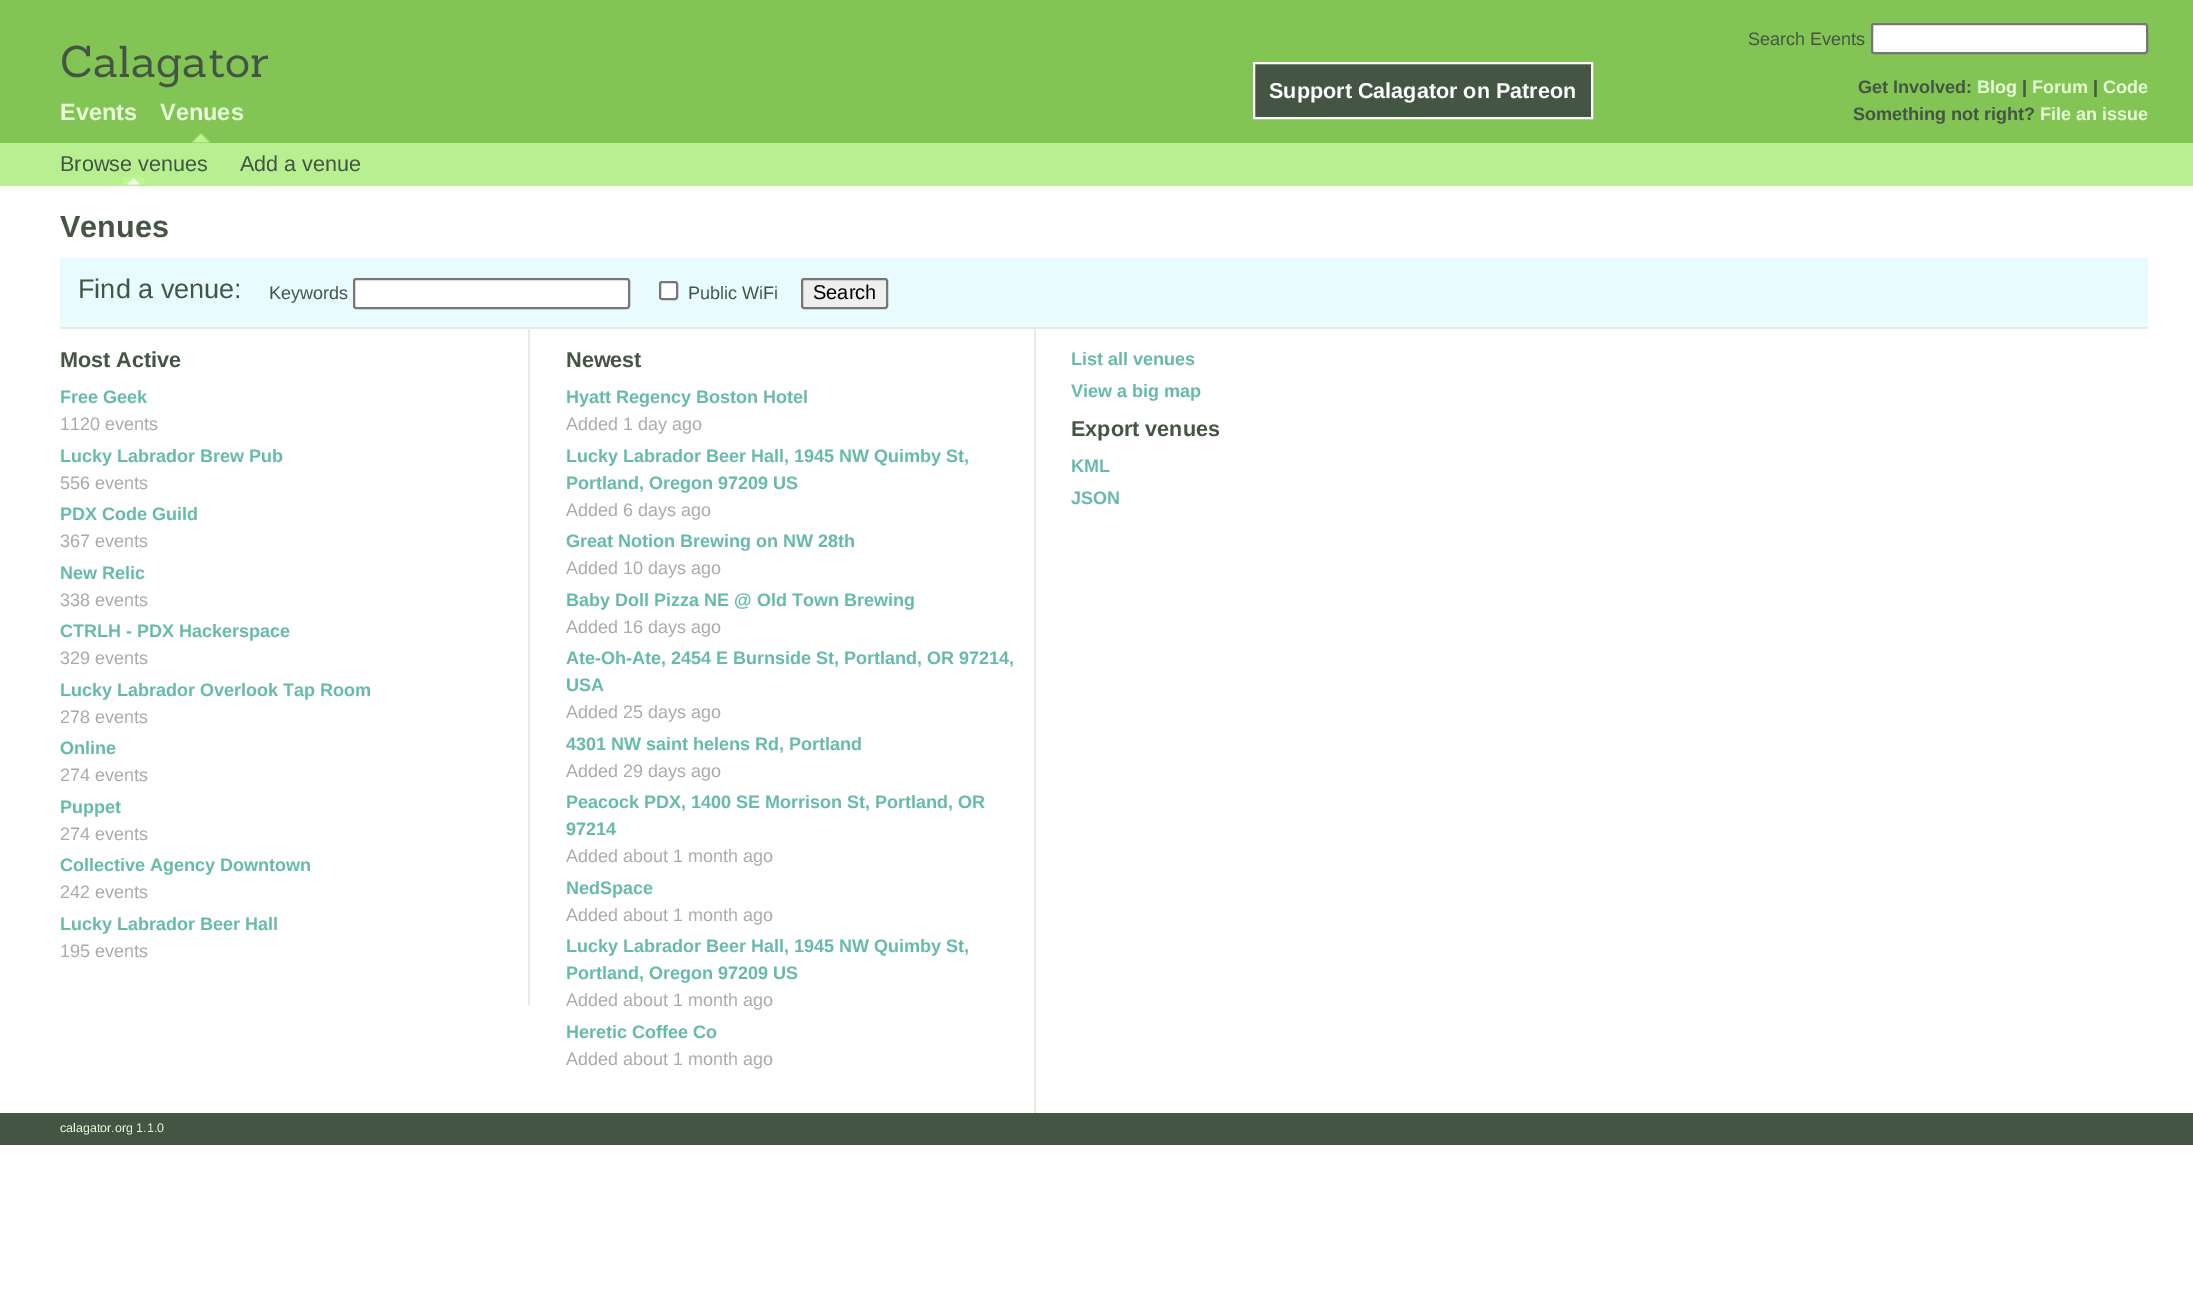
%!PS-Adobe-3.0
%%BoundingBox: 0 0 2193 1307
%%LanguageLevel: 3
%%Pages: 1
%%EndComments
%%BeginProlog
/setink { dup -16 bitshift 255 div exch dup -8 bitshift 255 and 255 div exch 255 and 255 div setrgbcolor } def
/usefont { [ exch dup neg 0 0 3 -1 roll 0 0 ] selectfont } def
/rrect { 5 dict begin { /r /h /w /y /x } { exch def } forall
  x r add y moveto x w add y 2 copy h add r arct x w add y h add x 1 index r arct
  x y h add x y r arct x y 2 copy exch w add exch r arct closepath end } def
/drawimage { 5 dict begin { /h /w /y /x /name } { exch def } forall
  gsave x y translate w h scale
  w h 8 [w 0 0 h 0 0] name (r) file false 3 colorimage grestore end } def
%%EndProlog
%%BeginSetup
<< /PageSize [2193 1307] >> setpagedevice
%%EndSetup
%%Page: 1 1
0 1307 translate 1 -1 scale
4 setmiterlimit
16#FFFFFF setink
0 0 2193 1307 rectfill
16#82C555 setink
0 0 2193 143 rectfill
/LiberationSans-Regular 18 usefont
16#445544 setink
1748 45 moveto (Search Events) show
16#FFFFFF setink
1872 24 275 29 2 rrect gsave fill grestore
16#767676 setink
2 setlinewidth
stroke
/LiberationSans-Bold 23.5 usefont
16#E8FFD9 setink
60 120 moveto (Events) show
(img1.raw) 192 133 18 10 drawimage
160 120 moveto (Venues) show
/LiberationSans-Bold 18 usefont
16#445544 setink
1858 93 moveto (Get Involved:) show
16#E8FFD9 setink
1977 93 moveto (Blog) show
16#445544 setink
2022 93 moveto (|) show
16#E8FFD9 setink
2032 93 moveto (Forum) show
16#445544 setink
2093 93 moveto (|) show
16#E8FFD9 setink
2103 93 moveto (Code) show
16#445544 setink
1853 120 moveto (Something not right?) show
16#E8FFD9 setink
2040 120 moveto (File an issue) show
/Sanchez-Regular 43.5 usefont
16#445544 setink
60 77 moveto (Calagator) show
1254 63 moveto 1592 63 lineto 1592 118 lineto 1254 118 lineto closepath gsave fill grestore
16#FFFFFF setink
stroke
/LiberationSans-Bold 21.6 usefont
1269 98 moveto (Support Calagator on Patreon) show
16#B7EF91 setink
0 143 2193 43 rectfill
/LiberationSans-Regular 21.6 usefont
16#445544 setink
60 171 moveto (Browse venues) show
(img2.raw) 123 177 21 8 drawimage
240 171 moveto (Add a venue) show
/LiberationSans-Bold 30.5 usefont
60 237 moveto (Venues) show
16#E8FBFE setink
60 258 2088 69 rectfill
16#E9E9E9 setink
60 327 2088 2 rectfill
/LiberationSans-Regular 27 usefont
16#445544 setink
78 298 moveto (Find a venue:) show
/LiberationSans-Regular 18 usefont
269 299 moveto (Keywords) show
16#FFFFFF setink
354 279 275 29 2 rrect gsave fill grestore
16#767676 setink
stroke
16#FFFFFF setink
660 282 17 17 2 rrect gsave fill grestore
16#767676 setink
stroke
16#445544 setink
688 299 moveto (Public WiFi) show
16#EFEFEF setink
802 279 85 29 2 rrect gsave fill grestore
16#767676 setink
stroke
/LiberationSans-Regular 20 usefont
16#000000 setink
813 299 moveto (Search) show
16#E9E9E9 setink
528 329 2 676 rectfill
/LiberationSans-Bold 21.6 usefont
16#445544 setink
60 367 moveto (Most Active) show
/LiberationSans-Bold 18 usefont
16#66BAA9 setink
60 403 moveto (Free Geek) show
/LiberationSans-Regular 18 usefont
16#AAAAAA setink
60 430 moveto (1120 events) show
/LiberationSans-Bold 18 usefont
16#66BAA9 setink
60 462 moveto (Lucky Labrador Brew Pub) show
/LiberationSans-Regular 18 usefont
16#AAAAAA setink
60 489 moveto (556 events) show
/LiberationSans-Bold 18 usefont
16#66BAA9 setink
60 520 moveto (PDX Code Guild) show
/LiberationSans-Regular 18 usefont
16#AAAAAA setink
60 547 moveto (367 events) show
/LiberationSans-Bold 18 usefont
16#66BAA9 setink
60 579 moveto (New Relic) show
/LiberationSans-Regular 18 usefont
16#AAAAAA setink
60 606 moveto (338 events) show
/LiberationSans-Bold 18 usefont
16#66BAA9 setink
60 637 moveto (CTRLH - PDX Hackerspace) show
/LiberationSans-Regular 18 usefont
16#AAAAAA setink
60 664 moveto (329 events) show
/LiberationSans-Bold 18 usefont
16#66BAA9 setink
60 696 moveto (Lucky Labrador Overlook Tap Room) show
/LiberationSans-Regular 18 usefont
16#AAAAAA setink
60 723 moveto (278 events) show
/LiberationSans-Bold 18 usefont
16#66BAA9 setink
60 754 moveto (Online) show
/LiberationSans-Regular 18 usefont
16#AAAAAA setink
60 781 moveto (274 events) show
/LiberationSans-Bold 18 usefont
16#66BAA9 setink
60 813 moveto (Puppet) show
/LiberationSans-Regular 18 usefont
16#AAAAAA setink
60 840 moveto (274 events) show
/LiberationSans-Bold 18 usefont
16#66BAA9 setink
60 871 moveto (Collective Agency Downtown) show
/LiberationSans-Regular 18 usefont
16#AAAAAA setink
60 898 moveto (242 events) show
/LiberationSans-Bold 18 usefont
16#66BAA9 setink
60 930 moveto (Lucky Labrador Beer Hall) show
/LiberationSans-Regular 18 usefont
16#AAAAAA setink
60 957 moveto (195 events) show
16#E9E9E9 setink
1034 329 2 784 rectfill
/LiberationSans-Bold 21.6 usefont
16#445544 setink
566 367 moveto (Newest) show
/LiberationSans-Bold 18 usefont
16#66BAA9 setink
566 403 moveto (Hyatt Regency Boston Hotel) show
/LiberationSans-Regular 18 usefont
16#AAAAAA setink
566 430 moveto (Added 1 day ago) show
/LiberationSans-Bold 18 usefont
16#66BAA9 setink
566 462 moveto (Lucky Labrador Beer Hall, 1945 NW Quimby St,) show
566 489 moveto (Portland, Oregon 97209 US) show
/LiberationSans-Regular 18 usefont
16#AAAAAA setink
566 516 moveto (Added 6 days ago) show
/LiberationSans-Bold 18 usefont
16#66BAA9 setink
566 547 moveto (Great Notion Brewing on NW 28th) show
/LiberationSans-Regular 18 usefont
16#AAAAAA setink
566 574 moveto (Added 10 days ago) show
/LiberationSans-Bold 18 usefont
16#66BAA9 setink
566 606 moveto (Baby Doll Pizza NE @ Old Town Brewing) show
/LiberationSans-Regular 18 usefont
16#AAAAAA setink
566 633 moveto (Added 16 days ago) show
/LiberationSans-Bold 18 usefont
16#66BAA9 setink
566 664 moveto (Ate-Oh-Ate, 2454 E Burnside St, Portland, OR 97214,) show
566 691 moveto (USA) show
/LiberationSans-Regular 18 usefont
16#AAAAAA setink
566 718 moveto (Added 25 days ago) show
/LiberationSans-Bold 18 usefont
16#66BAA9 setink
566 750 moveto (4301 NW saint helens Rd, Portland) show
/LiberationSans-Regular 18 usefont
16#AAAAAA setink
566 777 moveto (Added 29 days ago) show
/LiberationSans-Bold 18 usefont
16#66BAA9 setink
566 808 moveto (Peacock PDX, 1400 SE Morrison St, Portland, OR) show
566 835 moveto (97214) show
/LiberationSans-Regular 18 usefont
16#AAAAAA setink
566 862 moveto (Added about 1 month ago) show
/LiberationSans-Bold 18 usefont
16#66BAA9 setink
566 894 moveto (NedSpace) show
/LiberationSans-Regular 18 usefont
16#AAAAAA setink
566 921 moveto (Added about 1 month ago) show
/LiberationSans-Bold 18 usefont
16#66BAA9 setink
566 952 moveto (Lucky Labrador Beer Hall, 1945 NW Quimby St,) show
566 979 moveto (Portland, Oregon 97209 US) show
/LiberationSans-Regular 18 usefont
16#AAAAAA setink
566 1006 moveto (Added about 1 month ago) show
/LiberationSans-Bold 18 usefont
16#66BAA9 setink
566 1038 moveto (Heretic Coffee Co) show
/LiberationSans-Regular 18 usefont
16#AAAAAA setink
566 1065 moveto (Added about 1 month ago) show
/LiberationSans-Bold 18 usefont
16#66BAA9 setink
1071 365 moveto (List all venues) show
1071 397 moveto (View a big map) show
/LiberationSans-Bold 21.6 usefont
16#445544 setink
1071 436 moveto (Export venues) show
/LiberationSans-Bold 18 usefont
16#66BAA9 setink
1071 472 moveto (KML) show
1071 504 moveto (JSON) show
16#445544 setink
0 1113 2193 32 rectfill
/LiberationSans-Regular 12.5 usefont
16#E8FFD9 setink
60 1132 moveto (calagator.org 1.1.0) show
showpage
%%EOF
